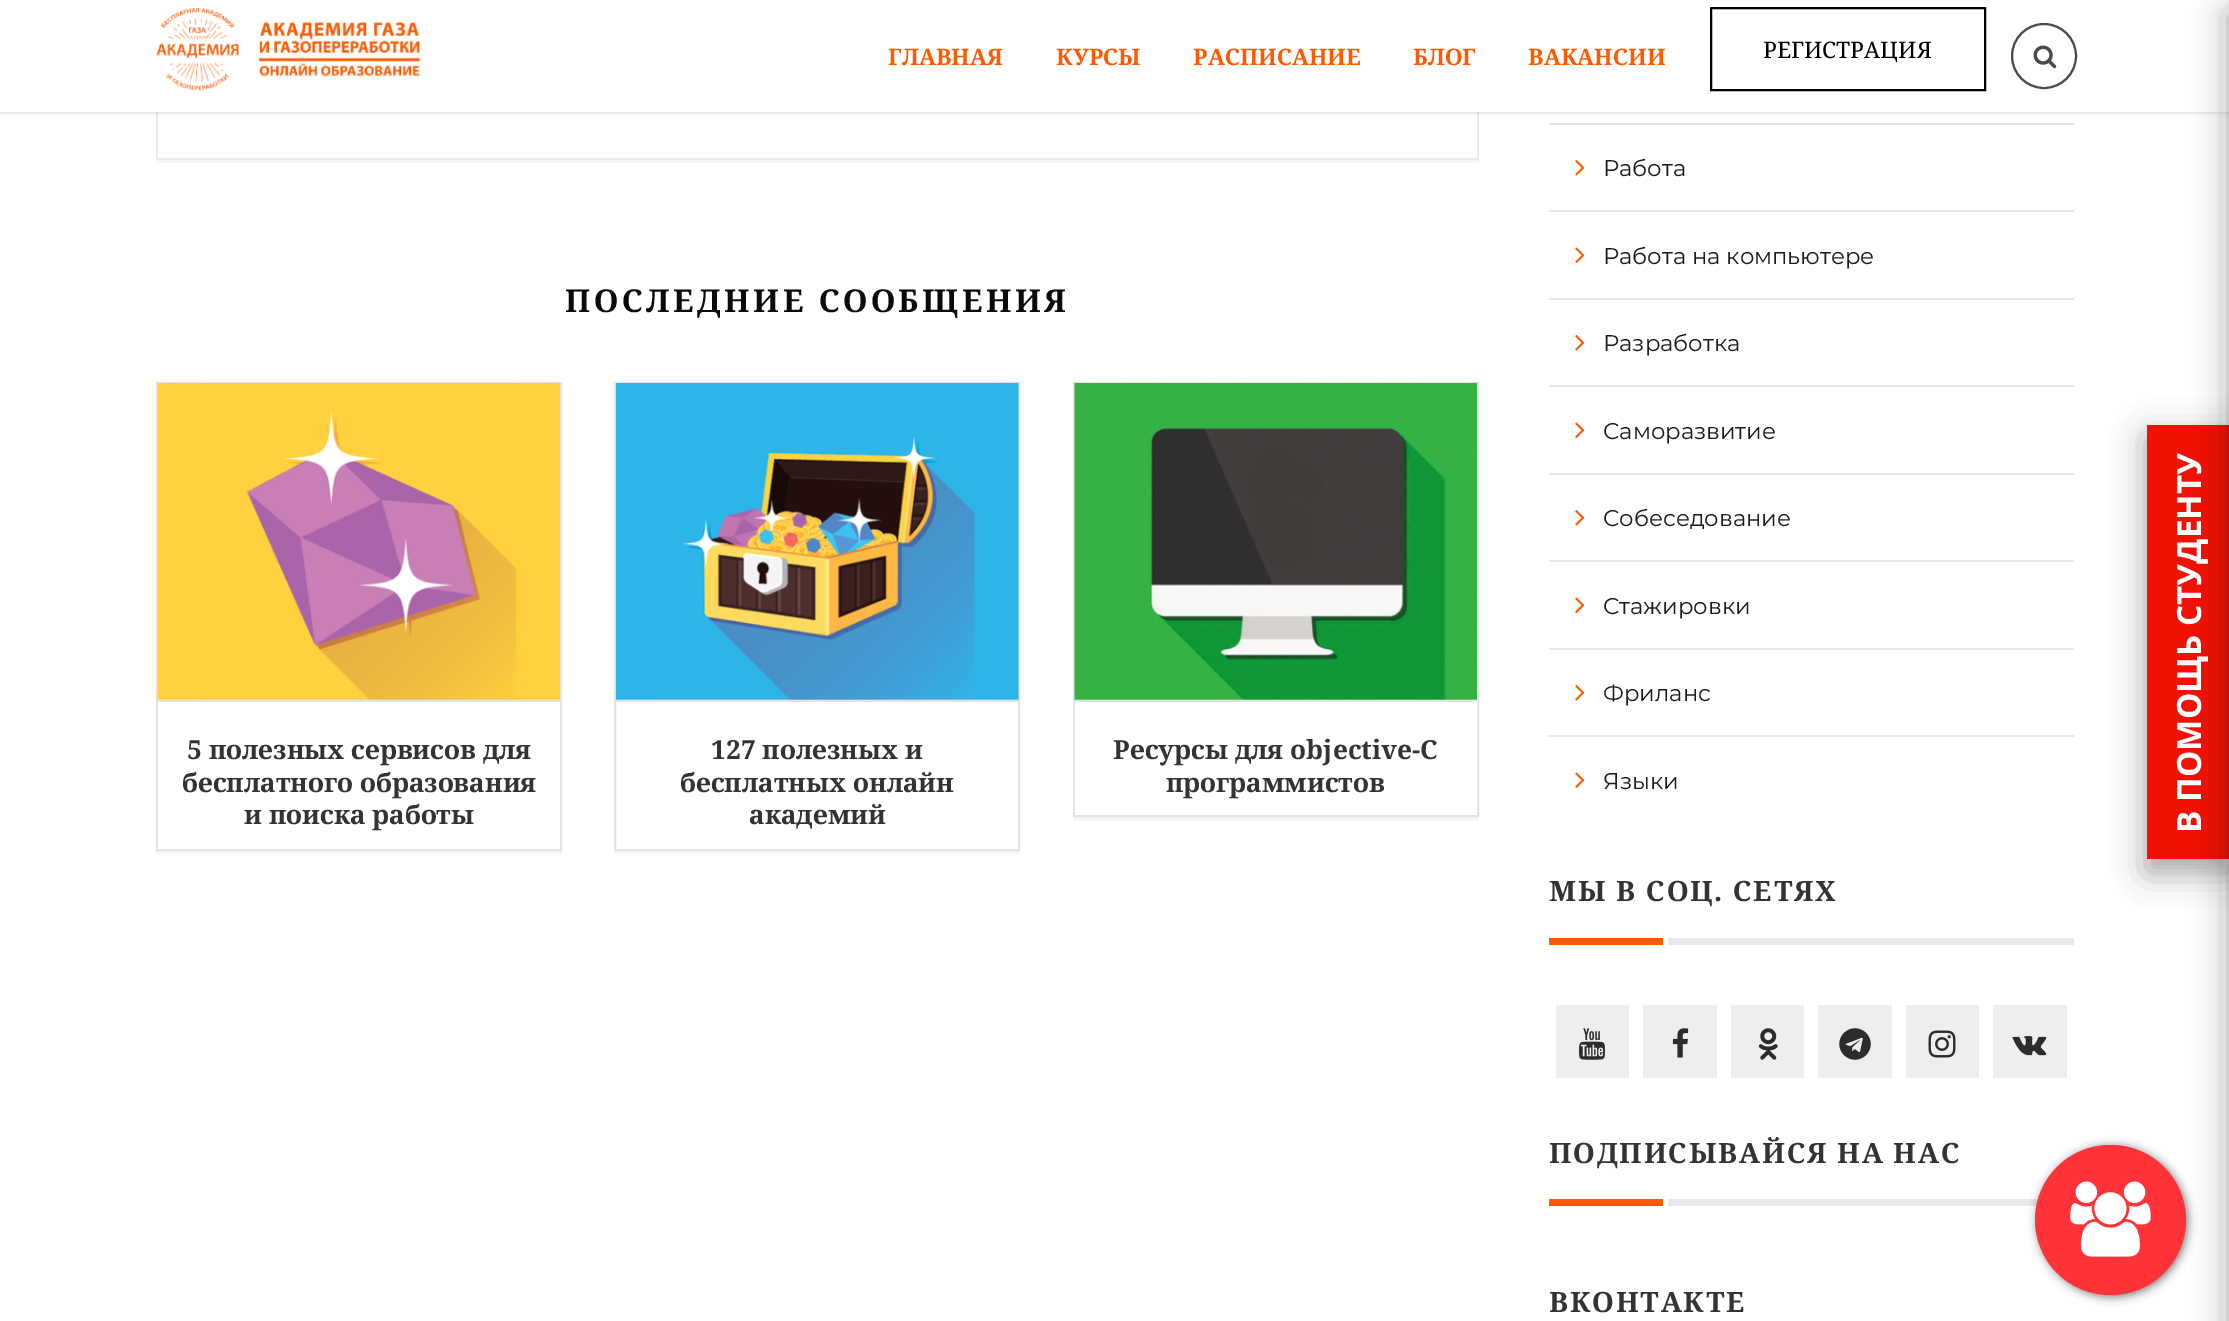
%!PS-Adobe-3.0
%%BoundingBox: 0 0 2229 1321
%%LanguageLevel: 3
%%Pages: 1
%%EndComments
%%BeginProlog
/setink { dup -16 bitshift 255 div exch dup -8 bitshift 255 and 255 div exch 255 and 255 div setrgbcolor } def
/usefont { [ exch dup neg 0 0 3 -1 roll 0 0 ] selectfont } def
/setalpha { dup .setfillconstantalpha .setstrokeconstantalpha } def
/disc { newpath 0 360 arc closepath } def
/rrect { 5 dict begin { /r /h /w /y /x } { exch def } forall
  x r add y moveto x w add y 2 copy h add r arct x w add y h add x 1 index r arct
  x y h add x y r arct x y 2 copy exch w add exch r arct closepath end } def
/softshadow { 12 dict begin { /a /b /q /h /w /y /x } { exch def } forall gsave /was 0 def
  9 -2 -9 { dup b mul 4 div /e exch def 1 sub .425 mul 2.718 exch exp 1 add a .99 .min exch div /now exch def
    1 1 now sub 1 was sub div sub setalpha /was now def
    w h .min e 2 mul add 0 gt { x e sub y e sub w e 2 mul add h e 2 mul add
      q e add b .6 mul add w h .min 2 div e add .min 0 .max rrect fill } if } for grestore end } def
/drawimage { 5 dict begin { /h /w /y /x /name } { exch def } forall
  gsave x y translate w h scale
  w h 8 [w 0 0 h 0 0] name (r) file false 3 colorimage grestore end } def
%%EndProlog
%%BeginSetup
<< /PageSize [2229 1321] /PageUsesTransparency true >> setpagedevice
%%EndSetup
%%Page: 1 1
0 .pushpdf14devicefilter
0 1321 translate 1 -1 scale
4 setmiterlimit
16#FFFFFF setink
0 0 2229 1321 rectfill
16#EBEBEB setink
1479 -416 moveto 1479 159 lineto 1477 158 lineto 1477 -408 lineto closepath fill
16#F6F6F6 setink
156 159 moveto 156 163 lineto 1479 163 lineto 1479 -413 lineto 1479 159 lineto closepath fill
16#EBEBEB setink
156 158 1323 2 rectfill
156 159 moveto 156 -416 lineto 158 -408 lineto 158 158 lineto closepath fill
16#000000 setink
0 0 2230 112 0 2.5 0.21 softshadow
16#FFFFFF setink
0 0 2229 112 rectfill
(img1.raw) 156 8 264 83 drawimage
/NotoSerif-Bold 22.75 usefont
16#FF5A00 setink
[
    [(ГЛАВНАЯ) 888 65]
    [(КУРСЫ) 1056 65]
    [(РАСПИСАНИЕ) 1193 65]
    [(БЛОГ) 1413 65]
    [(ВАКАНСИИ) 1528 65]
] { aload pop moveto show } forall
16#000000 setink
2 setlinewidth
1711 8 274 82 rectstroke
/NotoSerif-Regular 22.75 usefont
1763 58 moveto (РЕГИСТРАЦИЯ) show
16#4A4A4A setink
2044 56 32 disc stroke
(img2.raw) 2033 45 24 24 drawimage
/NotoSerif-Bold 31.5 usefont
16#0A0A0A setink
565 312 moveto 3.5 0 (ПОСЛЕДНИЕ СООБЩЕНИЯ) ashow
16#F6F6F6 setink
156 850 moveto 156 854 lineto 562 854 lineto 562 385 lineto 562 850 lineto closepath fill
16#E3E3E3 setink
157 383 404 467 rectstroke
(img3.raw) 157 383 403 317 drawimage
158 700 402 2 rectfill
/NotoSerif-Bold 26.25 usefont
16#333333 setink
[
    [(5 полезных сервисов для) 187 759]
    [(бесплатного образования) 182 792]
    [(и поиска работы) 244 824]
] { aload pop moveto show } forall
16#F6F6F6 setink
614 385 moveto 614 854 lineto 1020 854 lineto 1020 850 lineto 614 850 lineto closepath fill
16#E3E3E3 setink
615 383 404 467 rectstroke
(img4.raw) 616 383 403 317 drawimage
616 700 403 2 rectfill
16#333333 setink
[
    [(127 полезных и) 711 759]
    [(бесплатных онлайн) 680 792]
    [(академий) 749 824]
] { aload pop moveto show } forall
16#F6F6F6 setink
1073 817 moveto 1073 821 lineto 1479 821 lineto 1479 385 lineto 1479 817 lineto closepath fill
16#E3E3E3 setink
1074 383 404 433 rectstroke
(img5.raw) 1074 383 403 317 drawimage
1075 700 402 2 rectfill
16#333333 setink
1113 759 moveto (Ресурсы для objective-C) show
1166 792 moveto (программистов) show
16#E6E6E6 setink
1549 123 525 2 rectfill
1549 210 525 2 rectfill
(img6.raw) 1575 160 10 16 drawimage
/Montserrat-Regular 22.75 usefont
16#1A1A1A setink
1603 176 moveto (Работа) show
16#E6E6E6 setink
1549 298 525 2 rectfill
(img7.raw) 1575 247 10 16 drawimage
16#1A1A1A setink
1603 264 moveto (Работа на компьютере) show
16#E6E6E6 setink
1549 385 525 2 rectfill
(img6.raw) 1575 335 10 16 drawimage
16#1A1A1A setink
1603 351 moveto (Разработка) show
16#E6E6E6 setink
1549 473 525 2 rectfill
(img7.raw) 1575 422 10 16 drawimage
16#1A1A1A setink
1603 439 moveto (Саморазвитие) show
16#E6E6E6 setink
1549 560 525 2 rectfill
(img6.raw) 1575 510 10 16 drawimage
16#1A1A1A setink
1603 526 moveto (Собеседование) show
16#E6E6E6 setink
1549 648 525 2 rectfill
(img7.raw) 1575 597 10 16 drawimage
16#1A1A1A setink
1603 614 moveto (Стажировки) show
16#E6E6E6 setink
1549 735 525 2 rectfill
(img6.raw) 1575 685 10 16 drawimage
16#1A1A1A setink
1603 701 moveto (Фриланс) show
(img7.raw) 1575 772 10 16 drawimage
1603 789 moveto (Языки) show
16#E8E8E8 setink
1668 938 406 7 rectfill
/NotoSerif-Bold 28 usefont
16#333333 setink
1549 901 moveto 1.75 0 (МЫ В СОЦ. СЕТЯХ) ashow
[
    [1549 938 119 7 16#FF5A00]
    [1663 938 5 7 16#FFFFFF]
    [1556 1005 73 73 16#EEEEEE]
] { aload pop setink rectfill } forall
(img8.raw) 1579 1028 26 32 drawimage
1643 1005 74 73 rectfill
(img9.raw) 1672 1028 17 30 drawimage
1731 1005 73 73 rectfill
(img10.raw) 1758 1028 20 32 drawimage
1818 1005 74 73 rectfill
(img11.raw) 1839 1028 32 32 drawimage
1906 1005 73 73 rectfill
(img12.raw) 1928 1030 28 28 drawimage
1993 1005 74 73 rectfill
(img13.raw) 2012 1036 35 20 drawimage
16#E8E8E8 setink
1668 1199 370 7 rectfill
16#333333 setink
1549 1163 moveto 1.75 0 (ПОДПИСЫВАЙСЯ НА НАС) ashow
16#FF5A00 setink
1549 1199 119 7 rectfill
16#FFFFFF setink
1663 1199 5 7 rectfill
16#333333 setink
1549 1312 moveto 1.75 0 (ВКОНТАКТЕ) ashow
16#000000 setink
2147 436 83 434 0 17.5 0.19 softshadow
2147 439 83 434 0 15 0.2 softshadow
16#F11204 setink
2147 425 82 434 rectfill
16#000000 setink
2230 11 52 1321 0 17.5 0.19 softshadow
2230 14 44 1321 0 15 0.2 softshadow
/OpenSans-Bold 33.25 usefont
16#FFFFFF setink
gsave 2201 833 translate -90 rotate 0 0 moveto (В ПОМОЩЬ СТУДЕНТУ) show grestore
16#000000 setink
2037 1146 151 151 75.5 4.5 0.5 softshadow
16#FF3338 setink
2035 1145 151 150 75 rrect fill
(img14.raw) 2070 1181 81 76 drawimage
.poppdf14devicefilter showpage
%%EOF
